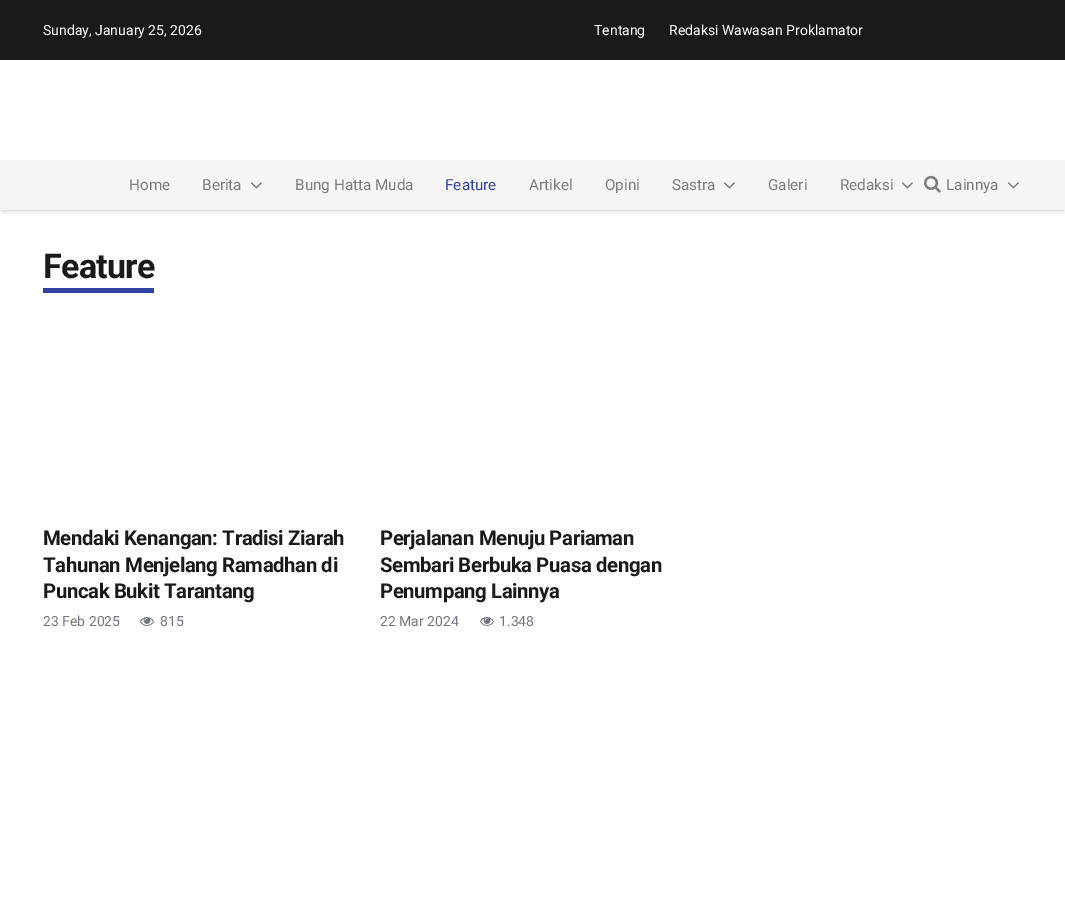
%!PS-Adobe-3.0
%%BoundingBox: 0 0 1065 902
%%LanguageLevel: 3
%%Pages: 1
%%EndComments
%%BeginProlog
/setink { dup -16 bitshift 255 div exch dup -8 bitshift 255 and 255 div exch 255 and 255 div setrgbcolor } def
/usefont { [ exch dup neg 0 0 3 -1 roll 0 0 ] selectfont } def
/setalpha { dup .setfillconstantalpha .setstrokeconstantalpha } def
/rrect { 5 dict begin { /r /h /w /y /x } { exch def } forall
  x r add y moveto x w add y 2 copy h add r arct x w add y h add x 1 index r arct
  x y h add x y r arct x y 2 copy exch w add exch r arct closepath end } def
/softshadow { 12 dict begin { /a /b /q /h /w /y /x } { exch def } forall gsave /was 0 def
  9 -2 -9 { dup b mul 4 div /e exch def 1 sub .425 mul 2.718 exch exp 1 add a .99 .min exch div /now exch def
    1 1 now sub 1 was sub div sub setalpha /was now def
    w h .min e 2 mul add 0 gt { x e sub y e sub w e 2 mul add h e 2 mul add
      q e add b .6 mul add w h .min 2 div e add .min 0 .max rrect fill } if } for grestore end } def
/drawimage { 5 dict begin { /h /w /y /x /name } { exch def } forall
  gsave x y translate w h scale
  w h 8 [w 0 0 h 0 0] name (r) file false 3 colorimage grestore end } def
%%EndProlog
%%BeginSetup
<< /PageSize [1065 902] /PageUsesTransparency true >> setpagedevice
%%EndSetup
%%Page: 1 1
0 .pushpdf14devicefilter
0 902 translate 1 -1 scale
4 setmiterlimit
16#FFFFFF setink
0 0 1065 902 rectfill
16#1A1A1A setink
0 0 1065 60 rectfill
/Roboto-Regular 14 usefont
16#FFFFFF setink
[
    [(Sunday, January 25, 2026) 43 35]
    [(Tentang) 594 35]
    [(Redaksi Wawasan Proklamator) 669 35]
] { aload pop moveto show } forall
16#000000 setink
1 163 1063 48 0 0.5 0.05 softshadow
1 164 1063 48 0 2.5 0.1 softshadow
16#F5F5F5 setink
0 160 1065 50 rectfill
(img1.raw) 924 175 17 18 drawimage
/Roboto-Regular 15.25 usefont
16#7D7D7D setink
129 190 moveto (Home) show
202 190 moveto (Berita) show
(img2.raw) 250 182 12 7 drawimage
295 190 moveto (Bung Hatta Muda) show
16#3343A1 setink
445 190 moveto (Feature) show
16#7D7D7D setink
[
    [(Artikel) 529 190]
    [(Opini) 605 190]
    [(Sastra) 672 190]
] { aload pop moveto show } forall
(img2.raw) 723 182 12 7 drawimage
768 190 moveto (Galeri) show
840 190 moveto (Redaksi) show
(img2.raw) 901 182 12 7 drawimage
946 190 moveto (Lainnya) show
(img2.raw) 1007 182 12 7 drawimage
16#3343A1 setink
43 288 111 5 rectfill
/Roboto-Bold 34 usefont
16#1A1A1A setink
43 278 moveto -0.75 0 (Feature) ashow
/Roboto-Bold 20.4 usefont
43 545 moveto -0.4 0 (Mendaki Kenangan: Tradisi Ziarah) ashow
43 572 moveto -0.4 0 (Tahunan Menjelang Ramadhan di) ashow
43 598 moveto -0.4 0 (Puncak Bukit Tarantang) ashow
/Roboto-Regular 14 usefont
16#72757E setink
43 626 moveto (23 Feb 2025) show
(img3.raw) 140 617 14 9 drawimage
160 626 moveto (815) show
/Roboto-Bold 20.4 usefont
16#1A1A1A setink
380 545 moveto -0.4 0 (Perjalanan Menuju Pariaman) ashow
380 572 moveto -0.4 0 (Sembari Berbuka Puasa dengan) ashow
380 598 moveto -0.4 0 (Penumpang Lainnya) ashow
/Roboto-Regular 14 usefont
16#72757E setink
380 626 moveto (22 Mar 2024) show
(img3.raw) 480 617 14 9 drawimage
499 626 moveto (1.348) show
.poppdf14devicefilter showpage
%%EOF
